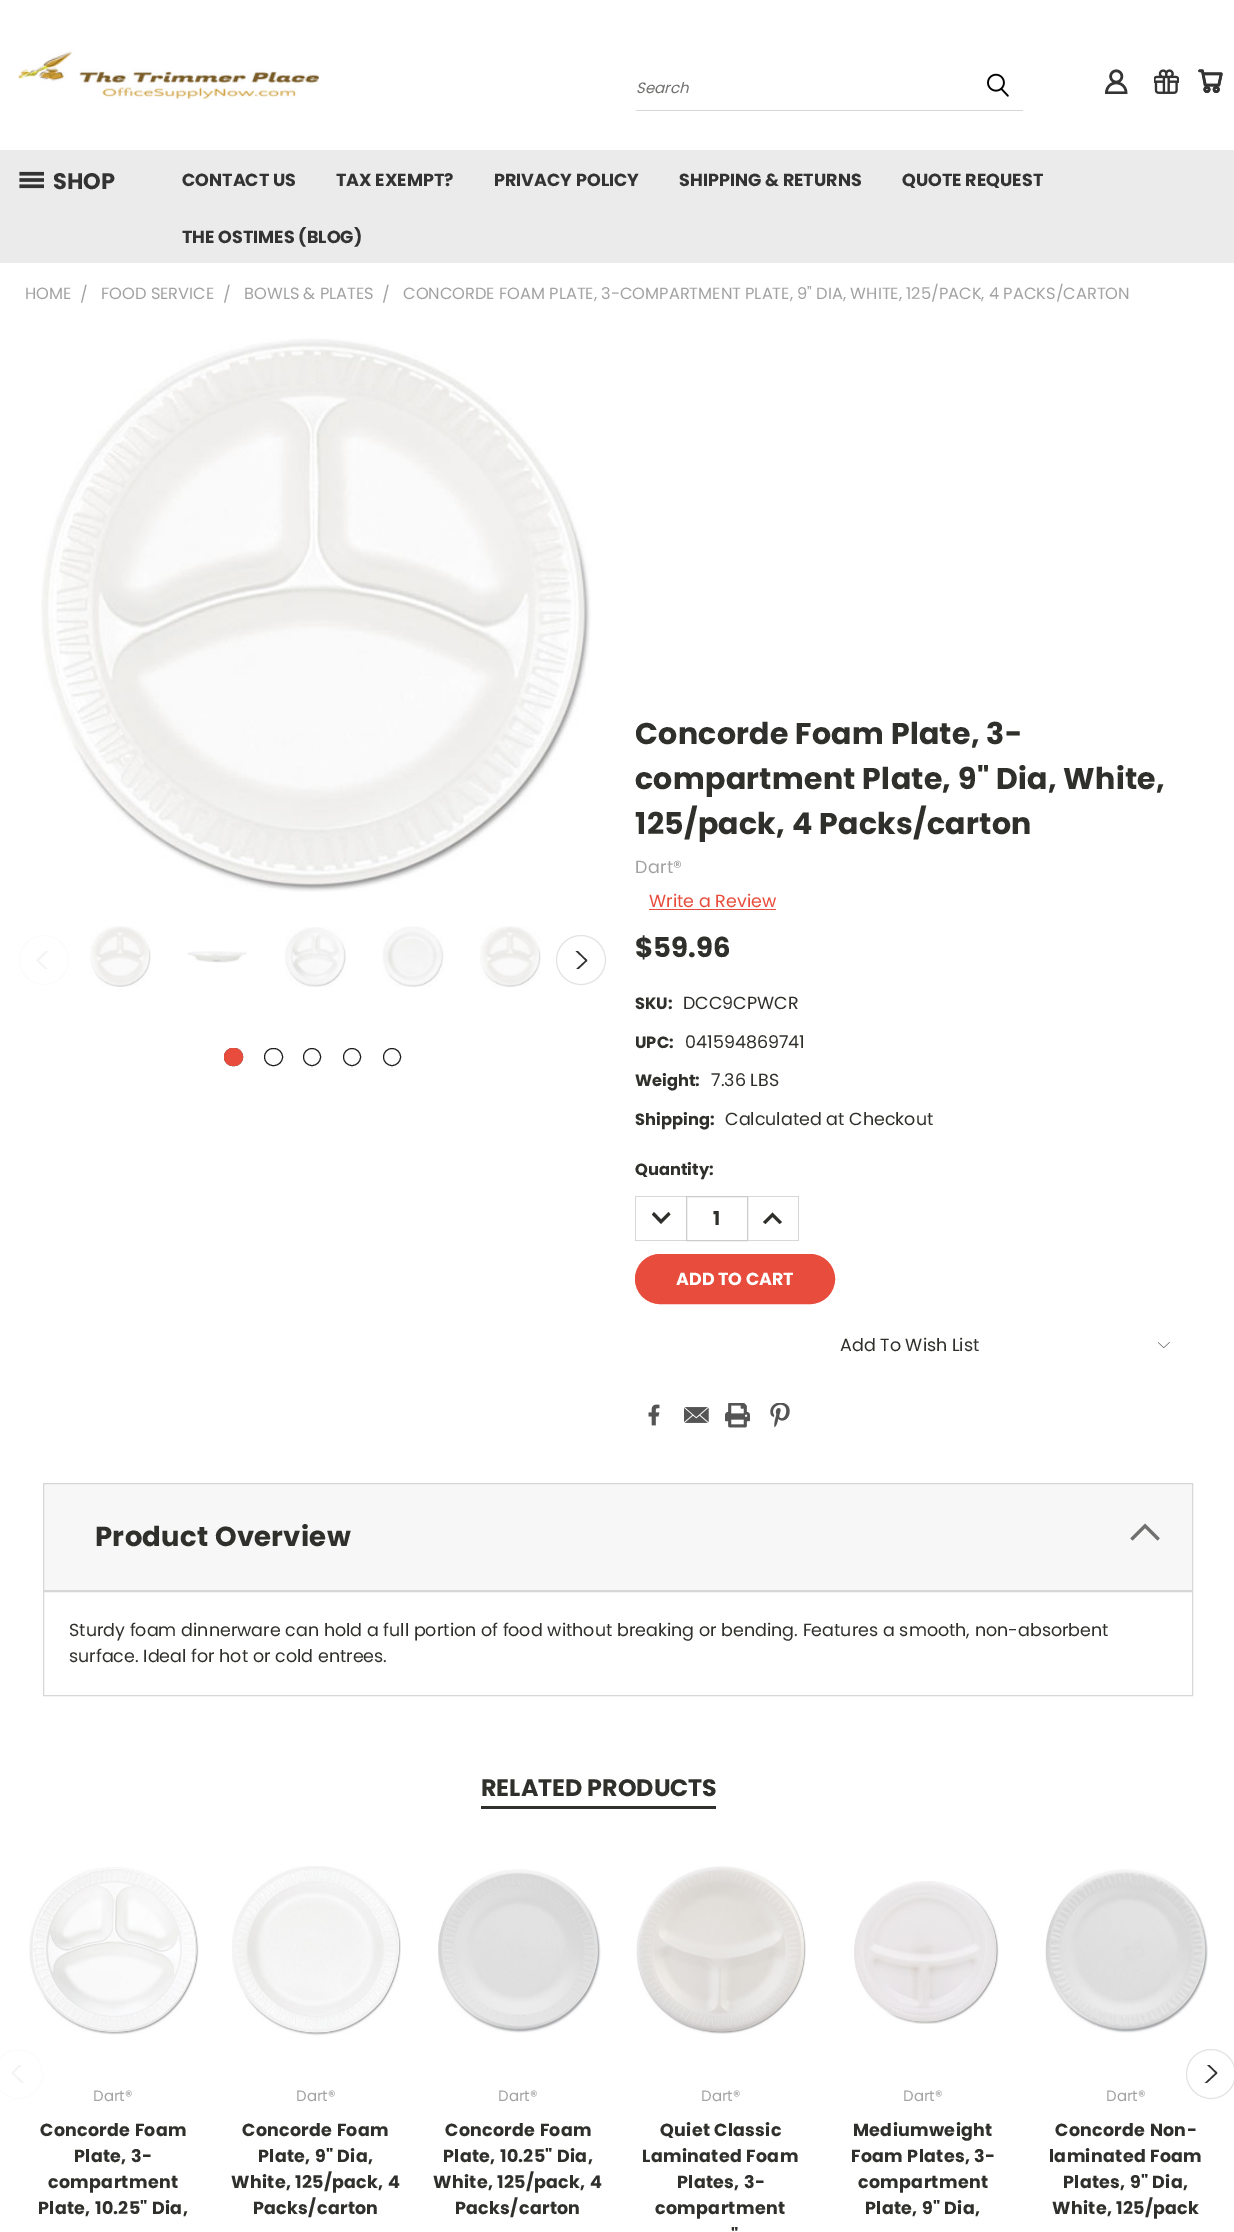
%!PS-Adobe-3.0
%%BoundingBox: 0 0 1234 2232
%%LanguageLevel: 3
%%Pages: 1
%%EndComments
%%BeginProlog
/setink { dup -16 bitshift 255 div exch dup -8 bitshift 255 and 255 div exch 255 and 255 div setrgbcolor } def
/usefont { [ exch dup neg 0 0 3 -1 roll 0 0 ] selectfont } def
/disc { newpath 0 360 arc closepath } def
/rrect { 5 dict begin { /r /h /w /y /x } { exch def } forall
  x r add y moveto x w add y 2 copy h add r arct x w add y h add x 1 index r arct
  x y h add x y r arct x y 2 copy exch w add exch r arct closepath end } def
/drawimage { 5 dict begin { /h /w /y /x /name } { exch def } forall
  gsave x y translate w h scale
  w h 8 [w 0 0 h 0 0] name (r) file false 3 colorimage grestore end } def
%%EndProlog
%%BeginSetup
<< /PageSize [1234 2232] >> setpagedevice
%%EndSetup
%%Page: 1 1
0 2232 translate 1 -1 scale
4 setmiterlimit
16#FFFFFF setink
0 0 1234 2232 rectfill
(img1.raw) 18 51 301 49 drawimage
16#D7D7D7 setink
636 110 387 1 rectfill
/Poppins-Italic 15 usefont
16#70706E setink
636 93 moveto (Search) show
(img2.raw) 987 73 22 24 drawimage
(img3.raw) 1105 69 23 25 drawimage
(img4.raw) 1154 69 25 25 drawimage
(img5.raw) 1198 69 25 25 drawimage
16#EBEBEB setink
0 150 1234 113 rectfill
(img6.raw) 19 171 25 18 drawimage
/Poppins-Bold 22.5 usefont
16#333333 setink
53 189 moveto (SHOP) show
/Poppins-Bold 17.5 usefont
[
    [(CONTACT US) 182 186]
    [(TAX EXEMPT?) 336 186]
    [(PRIVACY POLICY) 494 186]
    [(SHIPPING & RETURNS) 679 186]
    [(QUOTE REQUEST) 902 186]
    [(THE OSTIMES \(BLOG\)) 182 243]
] { aload pop moveto show } forall
/Poppins-Regular 16.25 usefont
16#A2A2A2 setink
[
    [(HOME) 25 299]
    [(/) 80 300]
    [(FOOD SERVICE) 101 299]
    [(/) 223 300]
    [(BOWLS & PLATES) 244 299]
    [(/) 382 300]
    [(CONCORDE FOAM PLATE, 3-COMPARTMENT PLATE, 9" DIA, WHITE, 125/PACK, 4 PACKS/CARTON) 403 299]
] { aload pop moveto show } forall
(img7.raw) 41 338 550 554 drawimage
16#FCFCFC setink
44 960 24.5 disc stroke
gsave
36 951 18 18 rectclip
16#F3F3F3 setink
1.5 setlinewidth
1 setlinecap
1 setlinejoin
52.5 945.5 moveto 37.5 960.5 lineto 52.5 975 lineto stroke
grestore
(img8.raw) 90 926 61 61 drawimage
(img9.raw) 187 951 60 12 drawimage
(img10.raw) 285 927 61 60 drawimage
(img11.raw) 382 926 62 61 drawimage
(img12.raw) 480 926 61 61 drawimage
16#E4E3E1 setink
581 960 24.5 disc stroke
gsave
570 951 18 18 rectclip
16#313131 setink
1.5 setlinewidth
1 setlinecap
1 setlinejoin
571 945.5 moveto 586.5 960.5 lineto 571 975 lineto stroke
grestore
16#1F1F1F setink
224.5 1048.5 18 17 8.5 rrect stroke
16#E74C3C setink
224 1048 19 18 9 rrect fill
16#1F1F1F setink
264.5 1048.5 18 17 8.5 rrect stroke
312 1057 8.5 disc stroke
352 1057 8.5 disc stroke
392 1057 8.5 disc stroke
/Poppins-Bold 30 usefont
16#2F2F2B setink
635 744 moveto 0.3 0 (Concorde Foam Plate, 3-) ashow
635 789 moveto 0.3 0 (compartment Plate, 9" Dia, White,) ashow
635 834 moveto 0.3 0 (125/pack, 4 Packs/carton) ashow
/Poppins-Regular 17.5 usefont
16#A2A2A2 setink
635 873 moveto 0.3 0 (Dart®) ashow
16#E74C3C setink
649 907 moveto (Write a Review) show
649 909 127 1 rectfill
/Poppins-Bold 27.5 usefont
16#2F2F2B setink
635 957 moveto ($59.96) show
/Poppins-Bold 16.25 usefont
635 1009 moveto (SKU:) show
/Poppins-Regular 17.5 usefont
683 1009 moveto (DCC9CPWCR) show
/Poppins-Bold 16.25 usefont
635 1048 moveto (UPC:) show
/Poppins-Regular 17.5 usefont
685 1048 moveto (041594869741) show
/Poppins-Bold 16.25 usefont
635 1086 moveto (Weight:) show
/Poppins-Regular 17.5 usefont
711 1086 moveto (7.36 LBS) show
/Poppins-Bold 16.25 usefont
635 1125 moveto (Shipping:) show
/Poppins-Regular 17.5 usefont
725 1125 moveto (Calculated at Checkout) show
/Poppins-Bold 16.25 usefont
635 1175 moveto (Quantity:) show
[
    [635 1196 51 1 16#D7D7D7]
    [635 1240 51 1 16#D7D7D7]
    [635 1196 1 45 16#D7D7D7]
] { aload pop setink rectfill } forall
16#2F2F2B setink
654 1212 moveto 661 1219.5 lineto 668.5 1212 lineto 670.5 1214.5 lineto 661 1224 lineto 652 1214.5 lineto closepath fill
16#CCCCCC setink
686.5 1196.5 61 44 rectstroke
/Poppins-Bold 19 usefont
16#2F2F2B setink
713 1225 moveto (1) show
[
    [748 1196 51 1 16#D7D7D7]
    [798 1196 1 45 16#D7D7D7]
    [748 1240 51 1 16#D7D7D7]
] { aload pop setink rectfill } forall
16#2F2F2B setink
765.5 1224 moveto 772.5 1217 lineto 779.5 1224 lineto 782 1222 lineto 772.5 1212.5 lineto 763 1222 lineto closepath fill
16#E74C3C setink
635.5 1254.5 199 49 24.5 rrect gsave fill grestore
stroke
/Poppins-Bold 17.5 usefont
16#FFFFFF setink
676 1285 moveto (ADD TO CART) show
/Poppins-Regular 17.5 usefont
16#2F2F2B setink
840 1351 moveto (Add To Wish List) show
(img13.raw) 1158 1342 12 7 drawimage
(img14.raw) 648 1404 12 22 drawimage
(img15.raw) 684 1407 25 16 drawimage
(img16.raw) 725 1403 25 25 drawimage
(img17.raw) 770 1403 20 25 drawimage
16#F7F7F7 setink
43.5 1483.5 moveto 1192.5 1483.5 lineto 1192.5 1590.5 lineto 43.5 1590.5 lineto closepath gsave fill grestore
16#D7D7D7 setink
stroke
/Poppins-Bold 27.5 usefont
16#2F2F2B setink
95 1546 moveto 0.3 0 (Product Overview) ashow
(img18.raw) 1130 1523 30 18 drawimage
16#D7D7D7 setink
43.5 1591.5 1149 104 rectstroke
/Poppins-Regular 17.5 usefont
16#2F2F2B setink
69 1636 moveto (Sturdy foam dinnerware can hold a full portion of food without breaking or bending. Features a smooth, non-absorbent) show
69 1662 moveto (surface. Ideal for hot or cold entrees.) show
481 1806 235 3 rectfill
/Poppins-Bold 23.75 usefont
481 1796 moveto (RELATED PRODUCTS) show
16#FCFCFC setink
-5.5 2049.5 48 49 24 rrect stroke
gsave
11 2065 18 18 rectclip
16#F3F3F3 setink
1.5 setlinewidth
1 setlinecap
1 setlinejoin
27.5 2058 moveto 12.5 2073 lineto 27.5 2087.5 lineto stroke
grestore
16#E4E3E1 setink
1211 2074 24.5 disc stroke
gsave
1200 2065 18 18 rectclip
16#313131 setink
1.5 setlinewidth
1 setlinecap
1 setlinejoin
1201 2058 moveto 1216.5 2073 lineto 1201 2087.5 lineto stroke
grestore
(img19.raw) 29 1867 170 168 drawimage
/Poppins-Regular 15 usefont
16#A2A2A2 setink
93 2101 moveto (Dart®) show
/Poppins-Bold 17.5 usefont
16#2F2F2B setink
40 2136 moveto 0.3 0 (Concorde Foam) ashow
74 2162 moveto 0.3 0 (Plate, 3-) ashow
48 2188 moveto 0.3 0 (compartment) ashow
38 2214 moveto 0.3 0 (Plate, 10.25" Dia,) ashow
(img20.raw) 232 1866 169 170 drawimage
/Poppins-Regular 15 usefont
16#A2A2A2 setink
296 2101 moveto (Dart®) show
/Poppins-Bold 17.5 usefont
16#2F2F2B setink
242 2136 moveto 0.3 0 (Concorde Foam) ashow
258 2162 moveto 0.3 0 (Plate, 9" Dia,) ashow
231 2188 moveto 0.3 0 (White, 125/pack, 4) ashow
253 2214 moveto 0.3 0 (Packs/carton) ashow
(img21.raw) 438 1869 163 164 drawimage
/Poppins-Regular 15 usefont
16#A2A2A2 setink
498 2101 moveto (Dart®) show
/Poppins-Bold 17.5 usefont
16#2F2F2B setink
445 2136 moveto 0.3 0 (Concorde Foam) ashow
443 2162 moveto 0.3 0 (Plate, 10.25" Dia,) ashow
433 2188 moveto 0.3 0 (White, 125/pack, 4) ashow
455 2214 moveto 0.3 0 (Packs/carton) ashow
(img22.raw) 636 1866 170 168 drawimage
/Poppins-Regular 15 usefont
16#A2A2A2 setink
701 2101 moveto (Dart®) show
/Poppins-Bold 17.5 usefont
16#2F2F2B setink
660 2136 moveto 0.3 0 (Quiet Classic) ashow
642 2162 moveto 0.3 0 (Laminated Foam) ashow
677 2188 moveto 0.3 0 (Plates, 3-) ashow
655 2214 moveto 0.3 0 (compartment) ashow
731 2241 moveto 0.3 0 (") ashow
(img23.raw) 854 1881 145 143 drawimage
/Poppins-Regular 15 usefont
16#A2A2A2 setink
903 2101 moveto (Dart®) show
/Poppins-Bold 17.5 usefont
16#2F2F2B setink
853 2136 moveto 0.3 0 (Mediumweight) ashow
851 2162 moveto 0.3 0 (Foam Plates, 3-) ashow
858 2188 moveto 0.3 0 (compartment) ashow
865 2214 moveto 0.3 0 (Plate, 9" Dia,) ashow
(img24.raw) 1045 1869 163 164 drawimage
/Poppins-Regular 15 usefont
16#A2A2A2 setink
1106 2101 moveto (Dart®) show
/Poppins-Bold 17.5 usefont
16#2F2F2B setink
1055 2136 moveto 0.3 0 (Concorde Non-) ashow
1049 2162 moveto 0.3 0 (laminated Foam) ashow
1063 2188 moveto 0.3 0 (Plates, 9" Dia,) ashow
1052 2214 moveto 0.3 0 (White, 125/pack) ashow
showpage
%%EOF
